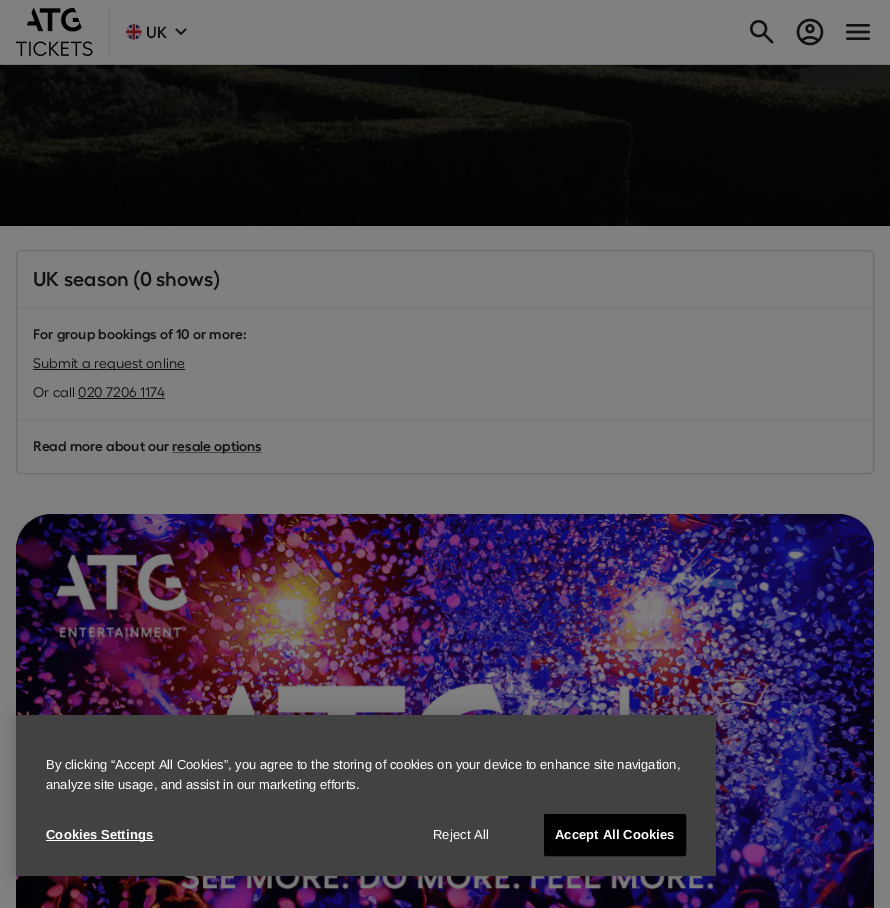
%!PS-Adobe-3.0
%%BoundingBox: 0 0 890 908
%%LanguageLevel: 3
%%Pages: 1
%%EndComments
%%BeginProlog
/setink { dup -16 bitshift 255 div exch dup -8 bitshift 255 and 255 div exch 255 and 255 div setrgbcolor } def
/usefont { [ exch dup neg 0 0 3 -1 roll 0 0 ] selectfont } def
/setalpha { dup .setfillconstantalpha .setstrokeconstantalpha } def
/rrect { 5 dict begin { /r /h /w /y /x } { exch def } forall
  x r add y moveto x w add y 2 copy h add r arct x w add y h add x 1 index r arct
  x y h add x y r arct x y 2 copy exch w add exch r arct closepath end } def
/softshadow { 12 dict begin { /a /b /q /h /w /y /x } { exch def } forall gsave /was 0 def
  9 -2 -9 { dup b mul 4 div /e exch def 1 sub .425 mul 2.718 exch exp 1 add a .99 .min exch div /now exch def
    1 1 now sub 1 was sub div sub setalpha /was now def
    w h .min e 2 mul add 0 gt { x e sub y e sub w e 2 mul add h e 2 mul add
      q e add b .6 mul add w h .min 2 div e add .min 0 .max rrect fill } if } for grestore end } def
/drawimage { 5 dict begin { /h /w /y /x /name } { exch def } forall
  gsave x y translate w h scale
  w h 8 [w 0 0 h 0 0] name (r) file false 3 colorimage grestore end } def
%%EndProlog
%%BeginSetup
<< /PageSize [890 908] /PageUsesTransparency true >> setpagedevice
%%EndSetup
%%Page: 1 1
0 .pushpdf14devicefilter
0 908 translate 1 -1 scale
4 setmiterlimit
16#808080 setink
0 0 890 908 rectfill
16#707070 setink
0 64 890 1 rectfill
(img1.raw) 16 8 77 48 drawimage
109 8 1 48 rectfill
(img2.raw) 126 24 16 16 drawimage
/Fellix-SemiBold 16 usefont
16#111111 setink
146 38 moveto (UK) show
(img3.raw) 175 28 12 7 drawimage
(img4.raw) 750 20 24 24 drawimage
(img5.raw) 796 18 28 28 drawimage
(img6.raw) 846 24 24 16 drawimage
(img7.raw) 0 65 890 161 drawimage
16#6C6C6C setink
16.5 250.5 857 223 4.5 rrect stroke
/Fellix-SemiBold 20 usefont
16#111111 setink
33 286 moveto (UK season \(0 shows\)) show
16#757575 setink
17 307 856 1 rectfill
/Fellix-SemiBold 14 usefont
16#111111 setink
33 339 moveto (For group bookings of 10 or more:) show
33 369 152 1 rectfill
/Fellix-Regular 14 usefont
33 368 moveto (Submit a request online) show
33 397 moveto (Or call 020 7206 1174) show
78 398 87 1 rectfill
16#757575 setink
17 419 856 1 rectfill
/Fellix-SemiBold 14 usefont
16#111111 setink
33 451 moveto (Read more about our) show
16#484848 setink
172 452 90 1 rectfill
16#111111 setink
172 451 moveto (resale options) show
(img8.raw) 16 514 858 394 drawimage
16#000000 setink
16 715 700 161 2.5 9 0.2 softshadow
16#424242 setink
16 715 700 161 2.5 rrect fill
/LiberationSans-Regular 13 usefont
16#FFFFFF setink
46 769 moveto (By clicking “Accept All Cookies”, you agree to the storing of cookies on your device to enhance site navigation,) show
46 789 moveto (analyze site usage, and assist in our marketing efforts.) show
46 840 108 1 rectfill
/LiberationSans-Bold 13 usefont
46 839 moveto 0.1 0 (Cookies Settings) ashow
/LiberationSans-Regular 13 usefont
433 839 moveto 0.1 0 (Reject All) ashow
16#000000 setink
544.5 814.5 141 41 1.5 rrect gsave fill grestore
stroke
/LiberationSans-Bold 13 usefont
16#FFFFFF setink
555 839 moveto 0.1 0 (Accept All Cookies) ashow
.poppdf14devicefilter showpage
%%EOF
